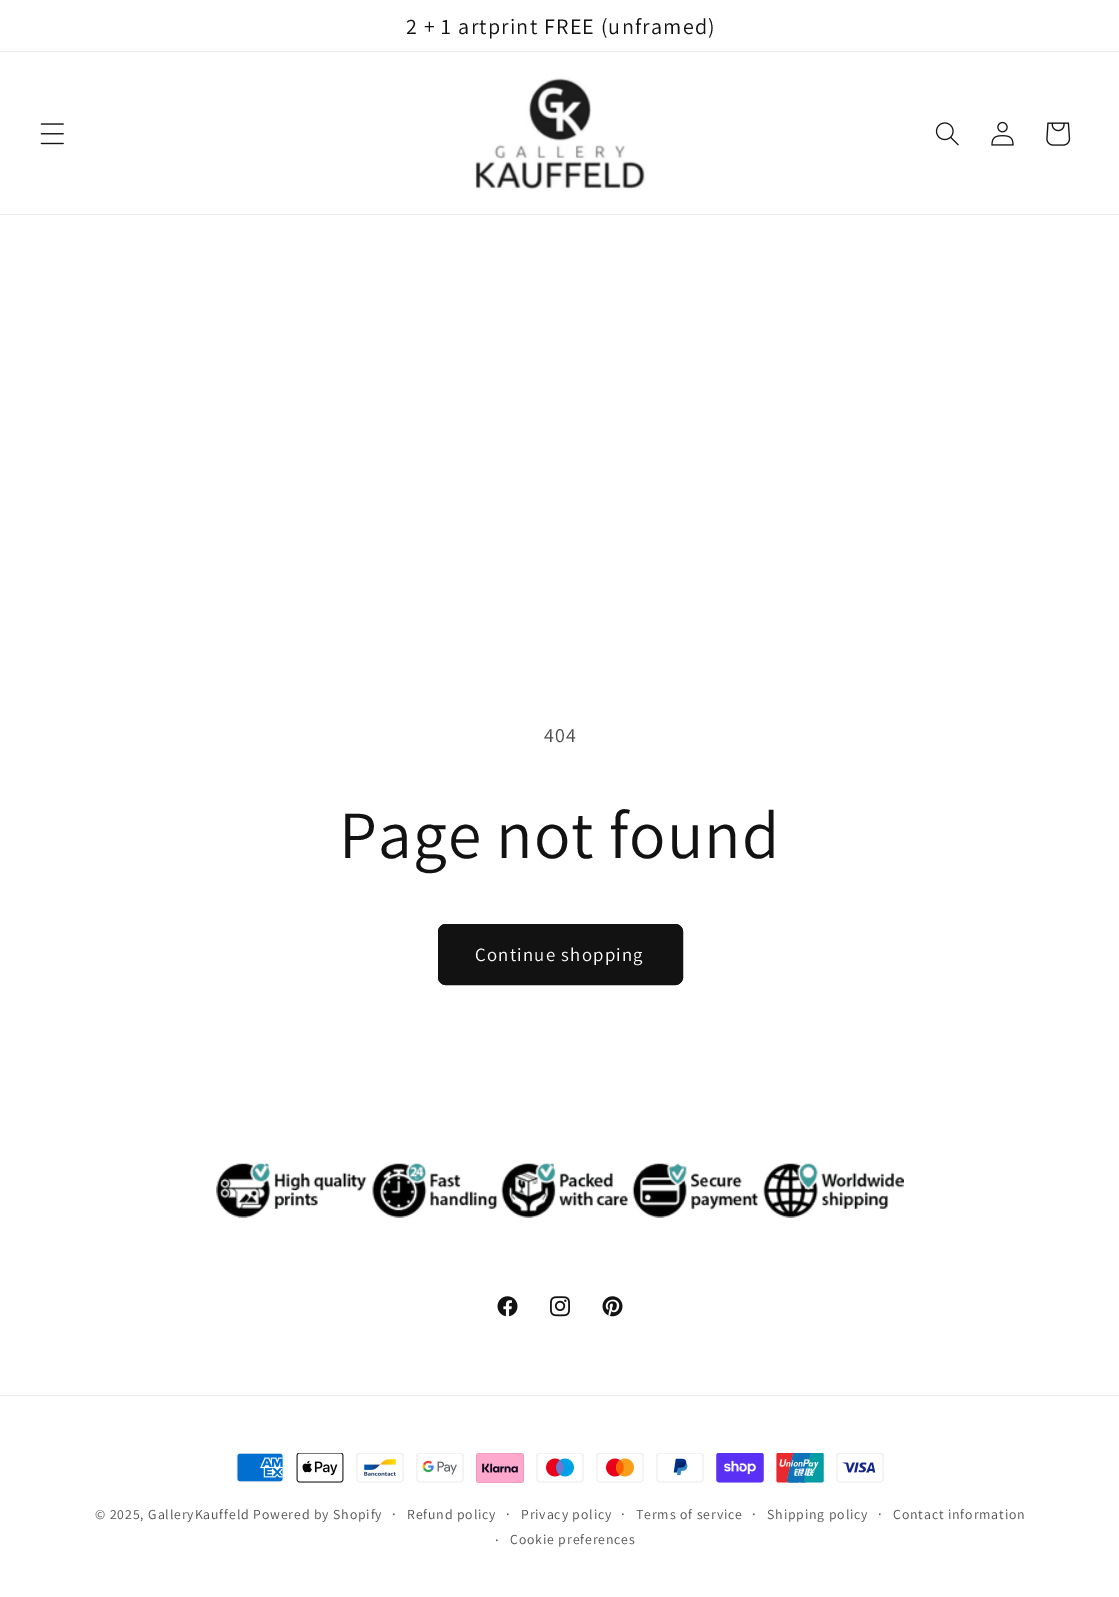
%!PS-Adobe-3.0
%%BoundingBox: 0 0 1119 1597
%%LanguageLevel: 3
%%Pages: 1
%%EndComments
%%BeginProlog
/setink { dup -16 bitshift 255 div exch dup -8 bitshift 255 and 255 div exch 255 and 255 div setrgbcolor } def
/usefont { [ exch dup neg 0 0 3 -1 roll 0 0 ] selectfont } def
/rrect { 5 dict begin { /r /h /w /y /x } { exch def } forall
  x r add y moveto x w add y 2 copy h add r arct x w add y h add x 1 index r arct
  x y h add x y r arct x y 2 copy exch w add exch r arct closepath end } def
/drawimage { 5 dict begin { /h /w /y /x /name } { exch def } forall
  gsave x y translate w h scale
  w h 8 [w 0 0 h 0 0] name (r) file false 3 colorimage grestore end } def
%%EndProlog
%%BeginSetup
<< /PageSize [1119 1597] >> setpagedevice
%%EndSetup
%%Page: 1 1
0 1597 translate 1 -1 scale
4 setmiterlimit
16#FFFFFF setink
0 0 1119 1597 rectfill
16#ECECEC setink
0 51 1119 1 rectfill
/Assistant-Regular 22 usefont
16#121212 setink
406 34 moveto 1.25 0 (2 + 1 artprint FREE \(unframed\)) ashow
16#ECECEC setink
0 214 1119 1 rectfill
(img1.raw) 40 123 24 22 drawimage
(img2.raw) 475 77 171 113 drawimage
(img3.raw) 935 122 24 24 drawimage
(img4.raw) 991 121 23 25 drawimage
(img5.raw) 1046 122 25 24 drawimage
/Assistant-Regular 20 usefont
16#4D4D4D setink
544 742 moveto 1 0 (404) ashow
/Assistant-Regular 67.5 usefont
16#121212 setink
339 858 moveto 1 0 (Page not found) ashow
438 924 245 61 8 rrect fill
3 setlinewidth
439.5 925.5 242 58 6.5 rrect stroke
/Assistant-Regular 18.75 usefont
16#FFFFFF setink
475 961 moveto 1.25 0 (Continue shopping) ashow
(img6.raw) 216 1163 688 55 drawimage
(img7.raw) 497 1296 21 21 drawimage
(img8.raw) 550 1296 20 21 drawimage
(img9.raw) 602 1296 21 21 drawimage
16#ECECEC setink
0 1395 1119 1 rectfill
(img10.raw) 236 1453 48 30 drawimage
(img11.raw) 296 1453 48 30 drawimage
(img12.raw) 356 1453 48 30 drawimage
(img13.raw) 416 1453 48 30 drawimage
(img14.raw) 476 1453 48 30 drawimage
(img15.raw) 536 1453 48 30 drawimage
(img16.raw) 596 1453 48 30 drawimage
(img17.raw) 656 1453 48 30 drawimage
(img18.raw) 716 1453 48 30 drawimage
(img19.raw) 776 1453 48 30 drawimage
(img20.raw) 836 1453 48 30 drawimage
/Assistant-Regular 13.75 usefont
16#4D4D4D setink
95 1519 moveto 0.9 0 (© 2025, GalleryKauffeld Powered by Shopify) ashow
/Assistant-Regular 15 usefont
392 1519 moveto 0.9 0 (·) ashow
/Assistant-Regular 13.75 usefont
407 1519 moveto 0.9 0 (Refund policy) ashow
/Assistant-Regular 15 usefont
506 1519 moveto 0.9 0 (·) ashow
/Assistant-Regular 13.75 usefont
521 1519 moveto 0.9 0 (Privacy policy) ashow
/Assistant-Regular 15 usefont
621 1519 moveto 0.9 0 (·) ashow
/Assistant-Regular 13.75 usefont
636 1519 moveto 0.9 0 (Terms of service) ashow
/Assistant-Regular 15 usefont
752 1519 moveto 0.9 0 (·) ashow
/Assistant-Regular 13.75 usefont
767 1519 moveto 0.9 0 (Shipping policy) ashow
/Assistant-Regular 15 usefont
878 1519 moveto 0.9 0 (·) ashow
/Assistant-Regular 13.75 usefont
893 1519 moveto 0.9 0 (Contact information) ashow
/Assistant-Regular 15 usefont
495 1545 moveto 0.9 0 (·) ashow
/Assistant-Regular 13.75 usefont
510 1544 moveto 0.9 0 (Cookie preferences) ashow
showpage
%%EOF
